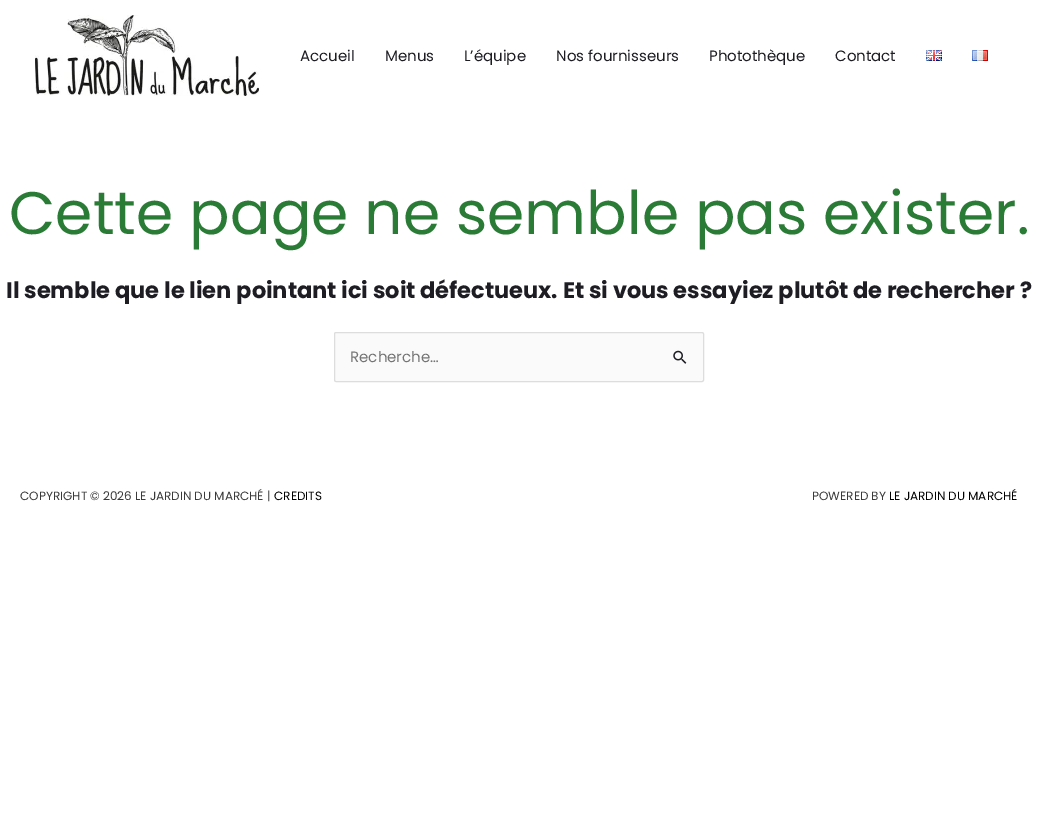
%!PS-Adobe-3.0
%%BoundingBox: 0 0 1038 836
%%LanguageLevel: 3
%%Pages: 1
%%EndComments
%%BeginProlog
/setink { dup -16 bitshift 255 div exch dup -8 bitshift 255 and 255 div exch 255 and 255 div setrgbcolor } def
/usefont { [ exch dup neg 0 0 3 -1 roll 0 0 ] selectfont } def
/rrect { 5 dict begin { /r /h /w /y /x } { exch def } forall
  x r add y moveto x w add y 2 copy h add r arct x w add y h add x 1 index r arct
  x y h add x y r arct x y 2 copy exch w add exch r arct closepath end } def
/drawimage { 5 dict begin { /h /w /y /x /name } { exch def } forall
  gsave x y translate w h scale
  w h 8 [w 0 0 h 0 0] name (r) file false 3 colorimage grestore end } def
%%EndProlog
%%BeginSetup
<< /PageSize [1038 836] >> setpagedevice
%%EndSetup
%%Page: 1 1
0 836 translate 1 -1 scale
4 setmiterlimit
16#FFFFFF setink
0 0 1038 836 rectfill
(img1.raw) 35 15 224 81 drawimage
/Poppins-Regular 15 usefont
16#1D1D23 setink
[
    [(Accueil) 300 61]
    [(Menus) 385 61]
    [(L’équipe) 464 61]
    [(Nos fournisseurs) 556 61]
    [(Photothèque) 709 61]
    [(Contact) 835 61]
] { aload pop moveto show } forall
(img2.raw) 926 50 16 11 drawimage
(img3.raw) 972 50 16 11 drawimage
/Poppins-Regular 60 usefont
16#2A7B35 setink
9 234 moveto (Cette page ne semble pas exister.) show
/Poppins-Bold 22.5 usefont
16#1D1D23 setink
6 298 moveto (Il semble que le lien pointant ici soit défectueux. Et si vous essayiez plutôt de rechercher ?) show
16#FAFAFA setink
334.5 332.5 369 49 1.5 rrect gsave fill grestore
16#DDDDDD setink
stroke
/Poppins-Regular 15 usefont
16#757575 setink
350 362 moveto (Recherche…) show
(img4.raw) 673 350 14 14 drawimage
/Poppins-Regular 12 usefont
16#3A3A3A setink
20 500 moveto (COPYRIGHT © 2026 LE JARDIN DU MARCHÉ |) show
16#000000 setink
274 500 moveto (CREDITS) show
16#3A3A3A setink
812 500 moveto (POWERED BY) show
16#000000 setink
889 500 moveto (LE JARDIN DU MARCHÉ) show
showpage
%%EOF
